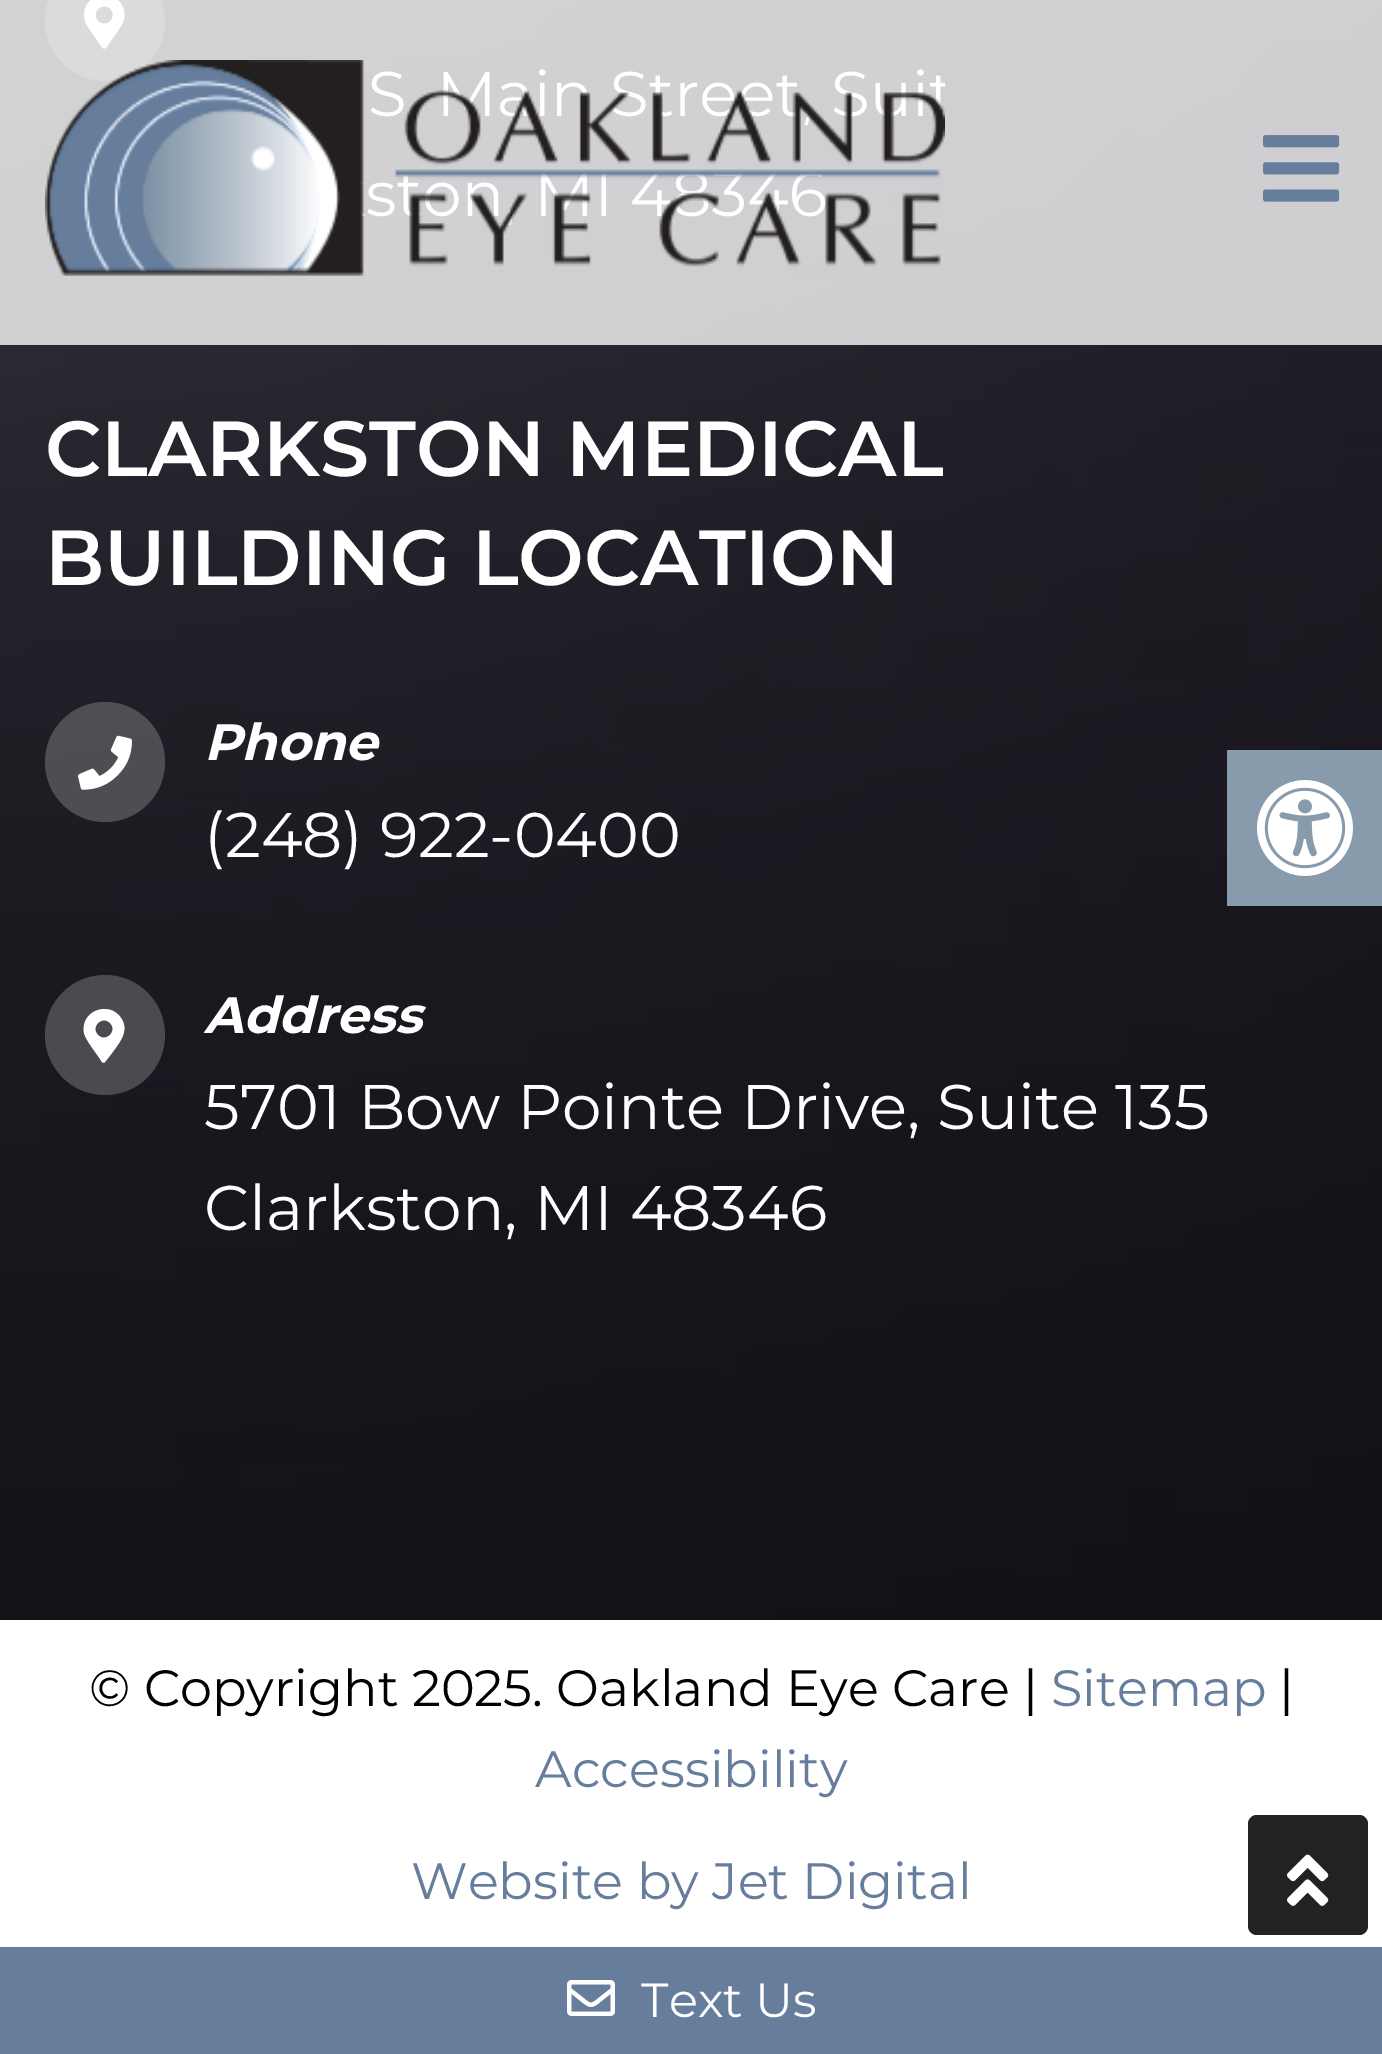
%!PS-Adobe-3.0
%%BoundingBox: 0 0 1382 2054
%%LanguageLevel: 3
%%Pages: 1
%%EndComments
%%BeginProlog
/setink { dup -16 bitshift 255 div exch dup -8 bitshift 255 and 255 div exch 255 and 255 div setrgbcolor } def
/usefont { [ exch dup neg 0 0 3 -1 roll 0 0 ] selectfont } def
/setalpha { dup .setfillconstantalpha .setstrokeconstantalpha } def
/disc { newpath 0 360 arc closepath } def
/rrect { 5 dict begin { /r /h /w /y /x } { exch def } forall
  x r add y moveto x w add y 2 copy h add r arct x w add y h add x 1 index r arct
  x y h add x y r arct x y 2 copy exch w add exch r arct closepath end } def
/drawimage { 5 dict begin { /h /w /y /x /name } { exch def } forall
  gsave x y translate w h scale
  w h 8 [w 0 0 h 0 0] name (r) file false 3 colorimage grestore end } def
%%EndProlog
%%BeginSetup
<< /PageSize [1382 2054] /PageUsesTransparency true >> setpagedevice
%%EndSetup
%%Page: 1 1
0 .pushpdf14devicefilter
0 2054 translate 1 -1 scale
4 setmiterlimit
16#FFFFFF setink
0 0 1382 2054 rectfill
16#000000 setink
0 0 1382 1620 rectfill
(img3.raw) 0 0 1382 1620 drawimage
16#5C5C5C setink
105 21 60 disc fill
(img4.raw) 84 0 41 49 drawimage
0.78 setalpha
16#FFFFFF setink
0 0 1382 345 rectfill
1 setalpha
(img1.raw) 45 60 900 216 drawimage
(img2.raw) 1263 135 77 67 drawimage
/Montserrat-SemiBold 78 usefont
45 476 moveto (CLARKSTON MEDICAL) show
45 585 moveto (BUILDING LOCATION) show
0.34 setalpha
16#ABABAB setink
105 762 60 disc fill
1 setalpha
(img5.raw) 78 735 54 55 drawimage
/Montserrat-BoldItalic 51 usefont
16#FFFFFF setink
204 760 moveto (Phone) show
/Montserrat-Regular 63 usefont
204 857 moveto (\(248\) 922-0400) show
16#4B4A4F setink
105 1035 60 disc fill
16#FFFFFF setink
102 1062 moveto 98 1055 86 1041 84 1033 curveto 80 1011 109 1000 121 1018 curveto 130 1031 119 1043 112 1053 curveto 105 1062 lineto 104 1063 103 1063 102 1062 curveto closepath 98 1035 moveto 106 1043 118 1031 110 1023 curveto 102 1015 90 1027 98 1035 curveto closepath fill
/Montserrat-BoldItalic 51 usefont
204 1033 moveto (Address) show
/Montserrat-Regular 63 usefont
204 1129 moveto (5701 Bow Pointe Drive, Suite 135) show
204 1230 moveto (Clarkston, MI 48346) show
/Montserrat-Regular 51 usefont
16#000000 setink
89 1706 moveto (© Copyright 2025. Oakland Eye Care |) show
16#667D9C setink
1051 1706 moveto (Sitemap) show
16#000000 setink
1279 1706 moveto (|) show
16#667D9C setink
535 1787 moveto (Accessibility) show
411 1899 moveto (Website by Jet Digital) show
16#889BAD setink
1227 750 155 156 rectfill
(img6.raw) 1257 780 96 96 drawimage
16#222222 setink
1248 1815 120 120 9 rrect fill
(img7.raw) 1287 1854 42 52 drawimage
16#667D9C setink
0 1947 1382 107 rectfill
(img8.raw) 567 1980 48 36 drawimage
/Montserrat-Regular 48 usefont
16#FFFFFF setink
641 2017 moveto (Text Us) show
.poppdf14devicefilter showpage
%%EOF
